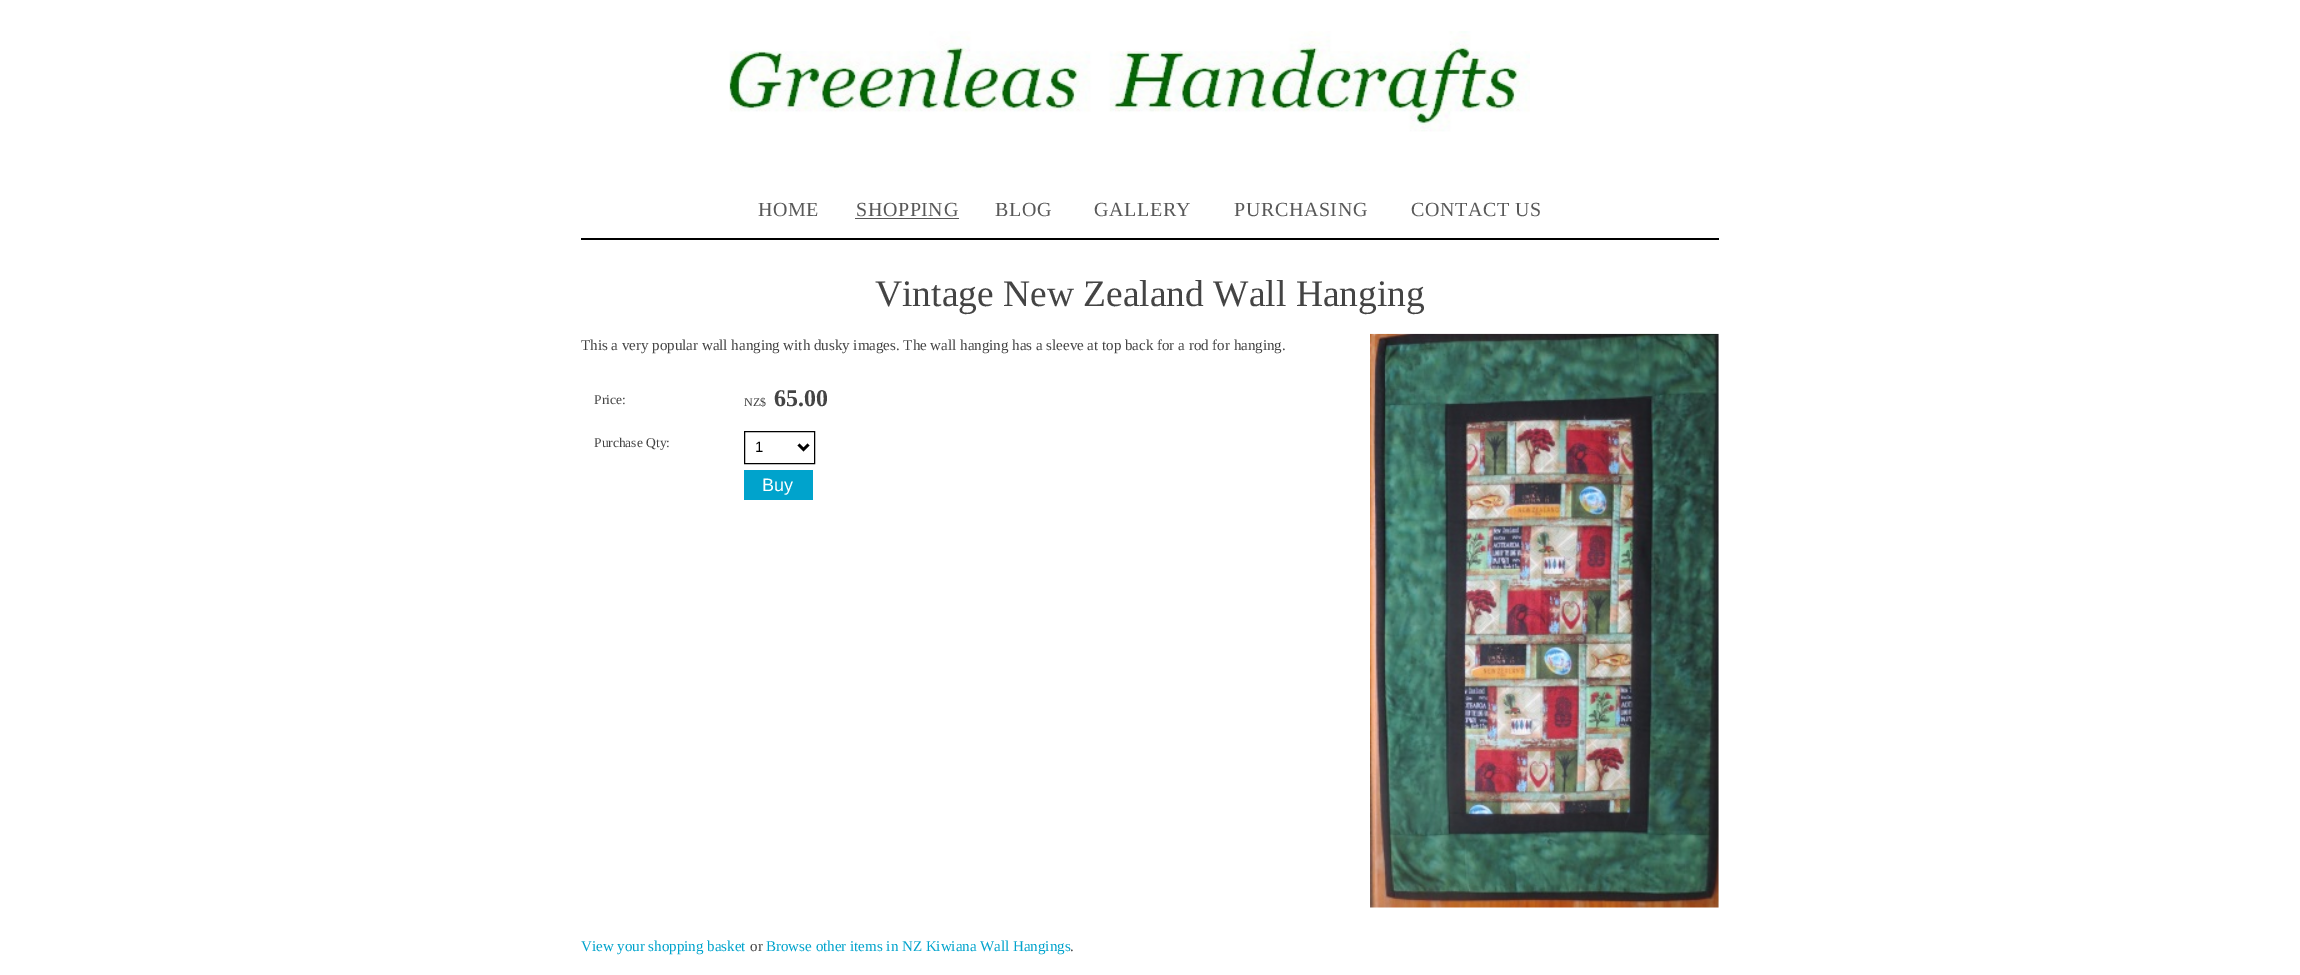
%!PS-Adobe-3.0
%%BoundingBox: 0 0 2300 975
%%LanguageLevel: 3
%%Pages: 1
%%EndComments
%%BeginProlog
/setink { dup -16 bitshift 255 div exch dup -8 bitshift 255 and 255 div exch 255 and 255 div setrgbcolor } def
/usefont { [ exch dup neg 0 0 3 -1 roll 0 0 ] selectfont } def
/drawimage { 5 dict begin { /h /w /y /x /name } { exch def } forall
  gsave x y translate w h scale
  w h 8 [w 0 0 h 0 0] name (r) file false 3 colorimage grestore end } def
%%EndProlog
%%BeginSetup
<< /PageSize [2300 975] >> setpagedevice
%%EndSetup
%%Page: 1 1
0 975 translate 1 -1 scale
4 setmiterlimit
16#FFFFFF setink
0 0 2300 975 rectfill
(img1.raw) 729 31 801 101 drawimage
16#000000 setink
581 238 1138 2 rectfill
/LiberationSerif-Regular 20 usefont
16#585858 setink
758 216 moveto 0.6 0 (HOME) ashow
856 216 moveto 0.6 0 (SHOPPING) ashow
855 218 104 1 rectfill
995 216 moveto 0.6 0 (BLOG) ashow
1094 216 moveto 0.6 0 (GALLERY) ashow
1234 216 moveto 0.6 0 (PURCHASING) ashow
1411 216 moveto 0.6 0 (CONTACT US) ashow
/LiberationSerif-Regular 37.5 usefont
16#444444 setink
875 306 moveto (Vintage New Zealand Wall Hanging) show
/LiberationSerif-Regular 15 usefont
581 350 moveto (This a very popular wall hanging with dusky images. The wall hanging has a sleeve at top back for a rod for hanging.) show
/LiberationSerif-Regular 13.5 usefont
594 404 moveto (Price:) show
/LiberationSerif-Regular 12 usefont
744 406 moveto (NZ$) show
/LiberationSerif-Bold 24 usefont
774 406 moveto (65.00) show
/LiberationSerif-Regular 13.5 usefont
594 447 moveto (Purchase Qty:) show
16#000000 setink
744.5 431.5 70 32 rectstroke
2.5 setlinewidth
798.5 444.5 moveto 803.5 449.5 lineto 808.5 444.5 lineto stroke
/LiberationSans-Regular 15 usefont
755 452 moveto (1) show
16#00A3CC setink
744 470 69 30 rectfill
/LiberationSans-Regular 18 usefont
16#FFFFFF setink
762 491 moveto (Buy) show
(img2.raw) 1370 333 349 575 drawimage
/LiberationSerif-Regular 15 usefont
16#00A3CC setink
581 951 moveto (View your shopping basket) show
16#444444 setink
750 951 moveto (or) show
16#00A3CC setink
766 951 moveto (Browse other items in NZ Kiwiana Wall Hangings) show
16#444444 setink
1070 951 moveto (.) show
showpage
%%EOF
